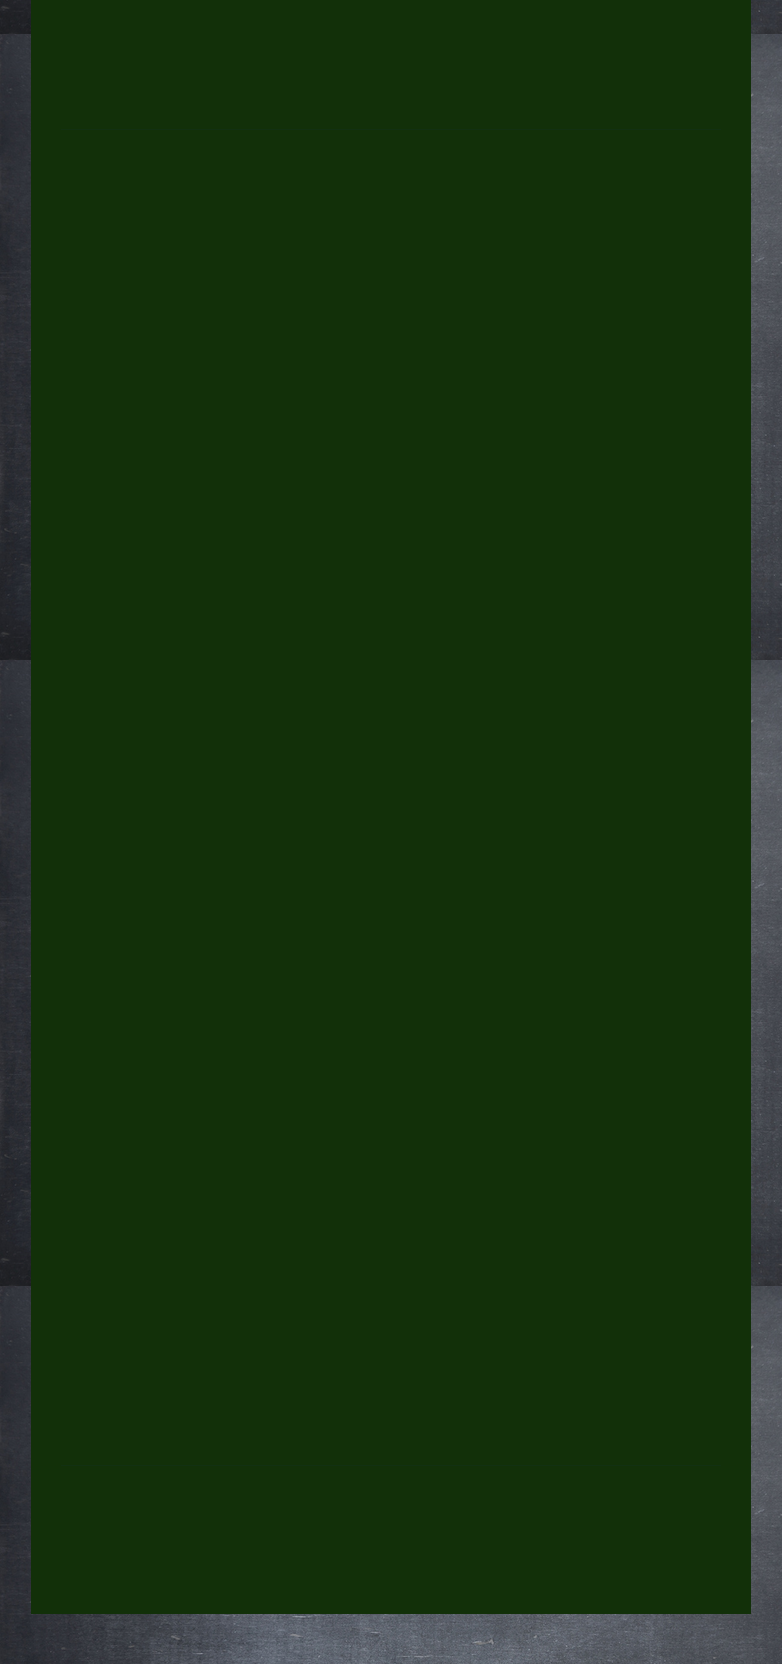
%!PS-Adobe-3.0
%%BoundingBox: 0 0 782 1664
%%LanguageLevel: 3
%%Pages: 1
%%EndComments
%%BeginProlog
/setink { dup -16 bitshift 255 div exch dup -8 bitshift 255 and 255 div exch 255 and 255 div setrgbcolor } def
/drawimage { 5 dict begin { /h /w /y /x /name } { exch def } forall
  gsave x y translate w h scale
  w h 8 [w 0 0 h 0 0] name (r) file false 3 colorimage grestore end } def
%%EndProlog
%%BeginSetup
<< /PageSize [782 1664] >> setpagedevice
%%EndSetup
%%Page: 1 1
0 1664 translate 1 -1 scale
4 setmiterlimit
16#FFFFFF setink
0 0 782 1664 rectfill
(img1.raw) 0 0 782 1664 drawimage
[
    [31 0 720 1614 16#123009]
    [61 129 660 1 16#123012]
    [61 1465 660 1 16#123012]
] { aload pop setink rectfill } forall
showpage
%%EOF
